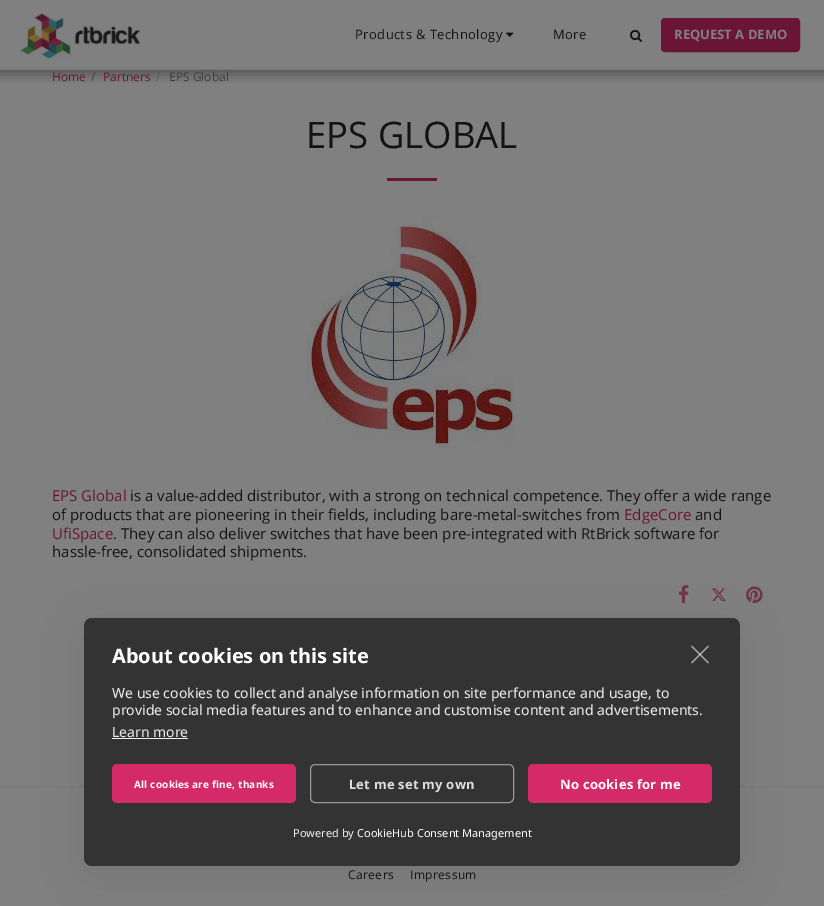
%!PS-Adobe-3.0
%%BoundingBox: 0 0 824 906
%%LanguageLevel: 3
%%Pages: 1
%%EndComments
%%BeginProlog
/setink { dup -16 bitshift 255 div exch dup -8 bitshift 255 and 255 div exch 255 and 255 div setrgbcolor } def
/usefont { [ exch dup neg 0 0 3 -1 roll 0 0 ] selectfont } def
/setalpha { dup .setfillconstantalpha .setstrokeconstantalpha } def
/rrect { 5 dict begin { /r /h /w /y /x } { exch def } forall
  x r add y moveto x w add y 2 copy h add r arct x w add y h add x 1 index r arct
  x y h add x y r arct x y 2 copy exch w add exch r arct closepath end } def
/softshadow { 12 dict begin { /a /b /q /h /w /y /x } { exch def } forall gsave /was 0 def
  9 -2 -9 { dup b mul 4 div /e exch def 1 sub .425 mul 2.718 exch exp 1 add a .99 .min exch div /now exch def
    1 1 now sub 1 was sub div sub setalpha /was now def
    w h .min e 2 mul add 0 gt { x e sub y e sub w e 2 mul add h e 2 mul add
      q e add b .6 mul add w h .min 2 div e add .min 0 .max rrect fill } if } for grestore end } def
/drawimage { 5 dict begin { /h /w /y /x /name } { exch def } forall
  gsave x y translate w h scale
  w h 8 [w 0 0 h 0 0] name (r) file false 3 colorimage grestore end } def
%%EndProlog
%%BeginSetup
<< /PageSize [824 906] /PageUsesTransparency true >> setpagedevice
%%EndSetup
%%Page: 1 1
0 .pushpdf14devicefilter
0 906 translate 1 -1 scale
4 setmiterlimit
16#808080 setink
0 0 824 906 rectfill
gsave
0 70 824 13 rectclip
16#000000 setink
-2 0 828 74 0 6 0.35 softshadow
grestore
16#767676 setink
0 69 824 1 rectfill
(img1.raw) 20 13 121 46 drawimage
/OpenSans-Regular 13 usefont
16#131313 setink
355 39 moveto 0.4 0 (Products & Technology) ashow
(img2.raw) 506 32 8 5 drawimage
553 39 moveto 0.4 0 (More) ashow
(img3.raw) 630 29 12 13 drawimage
16#6B1534 setink
661.5 18.5 138 33 3.5 rrect gsave fill grestore
stroke
/OpenSans-Bold 13 usefont
16#808080 setink
674 39 moveto (REQUEST A DEMO) show
/OpenSans-Regular 12 usefont
16#6B1534 setink
52 81 moveto (Home) show
16#3E3E3E setink
91 81 moveto (/) show
16#6B1534 setink
103 81 moveto (Partners) show
16#595959 setink
156 81 moveto (/) show
16#3E3E3E setink
169 81 moveto (EPS Global) show
/OpenSans-Regular 36.5 usefont
16#131313 setink
306 148 moveto (EPS GLOBAL) show
16#6B1534 setink
387 178 50 3 rectfill
(img4.raw) 306 216 208 233 drawimage
/OpenSans-Regular 15 usefont
52 501 moveto (EPS Global) show
16#131313 setink
130 501 moveto (is a value-added distributor, with a strong on technical competence. They offer a wide range) show
52 520 moveto (of products that are pioneering in their fields, including bare-metal-switches from) show
16#6B1534 setink
624 520 moveto (EdgeCore) show
16#131313 setink
695 520 moveto (and) show
16#6B1534 setink
52 539 moveto (UfiSpace) show
16#131313 setink
113 539 moveto (. They can also deliver switches that have been pre-integrated with RtBrick software for) show
52 557 moveto (hassle-free, consolidated shipments.) show
(img5.raw) 679 585 10 19 drawimage
(img6.raw) 711 588 15 14 drawimage
(img7.raw) 746 586 17 18 drawimage
16#767676 setink
0 786 824 1 rectfill
/OpenSans-Regular 12 usefont
16#131313 setink
348 879 moveto 0.4 0 (Careers) ashow
410 879 moveto 0.4 0 (Impressum) ashow
16#000000 setink
84 628 656 248 8 20 0.1 softshadow
16#333333 setink
84 618 656 248 8 rrect fill
16#A3A3A3 setink
691 662.5 moveto 708 645.5 lineto 709 646.5 lineto 692 663.5 lineto closepath fill
0.6 setalpha
16#EEEEEE setink
692 645.5 moveto 709 662.5 lineto 708 663.5 lineto 691 646.5 lineto closepath fill
/NotoSans-Bold 20 usefont
1 setalpha
16#FFFFFF setink
112 663 moveto (About cookies on this site) show
/NotoSans-Regular 14 usefont
16#EEEEEE setink
[
    [(We use cookies to collect and analyse information on site performance and usage, to) 112 698]
    [(provide social media features and to enhance and customise content and advertisements.) 112 715]
    [(Learn more) 112 737]
] { aload pop moveto show } forall
112 738 76 1 rectfill
16#D52A68 setink
112 764 184 39 5 rrect fill
/NotoSans-Bold 10 usefont
16#FFFFFF setink
134 788 moveto 0.2 0 (All cookies are fine, thanks) ashow
16#999999 setink
310.5 764.5 203 38 4.5 rrect stroke
/NotoSans-Bold 13 usefont
16#DDDDDD setink
349 789 moveto 0.2 0 (Let me set my own) ashow
16#D52A68 setink
528 764 184 39 5 rrect fill
16#FFFFFF setink
560 789 moveto 0.2 0 (No cookies for me) ashow
/NotoSans-Regular 11 usefont
16#EEEEEE setink
293 837 moveto (Powered by) show
16#FFFFFF setink
357 837 moveto (CookieHub Consent Management) show
.poppdf14devicefilter showpage
%%EOF
